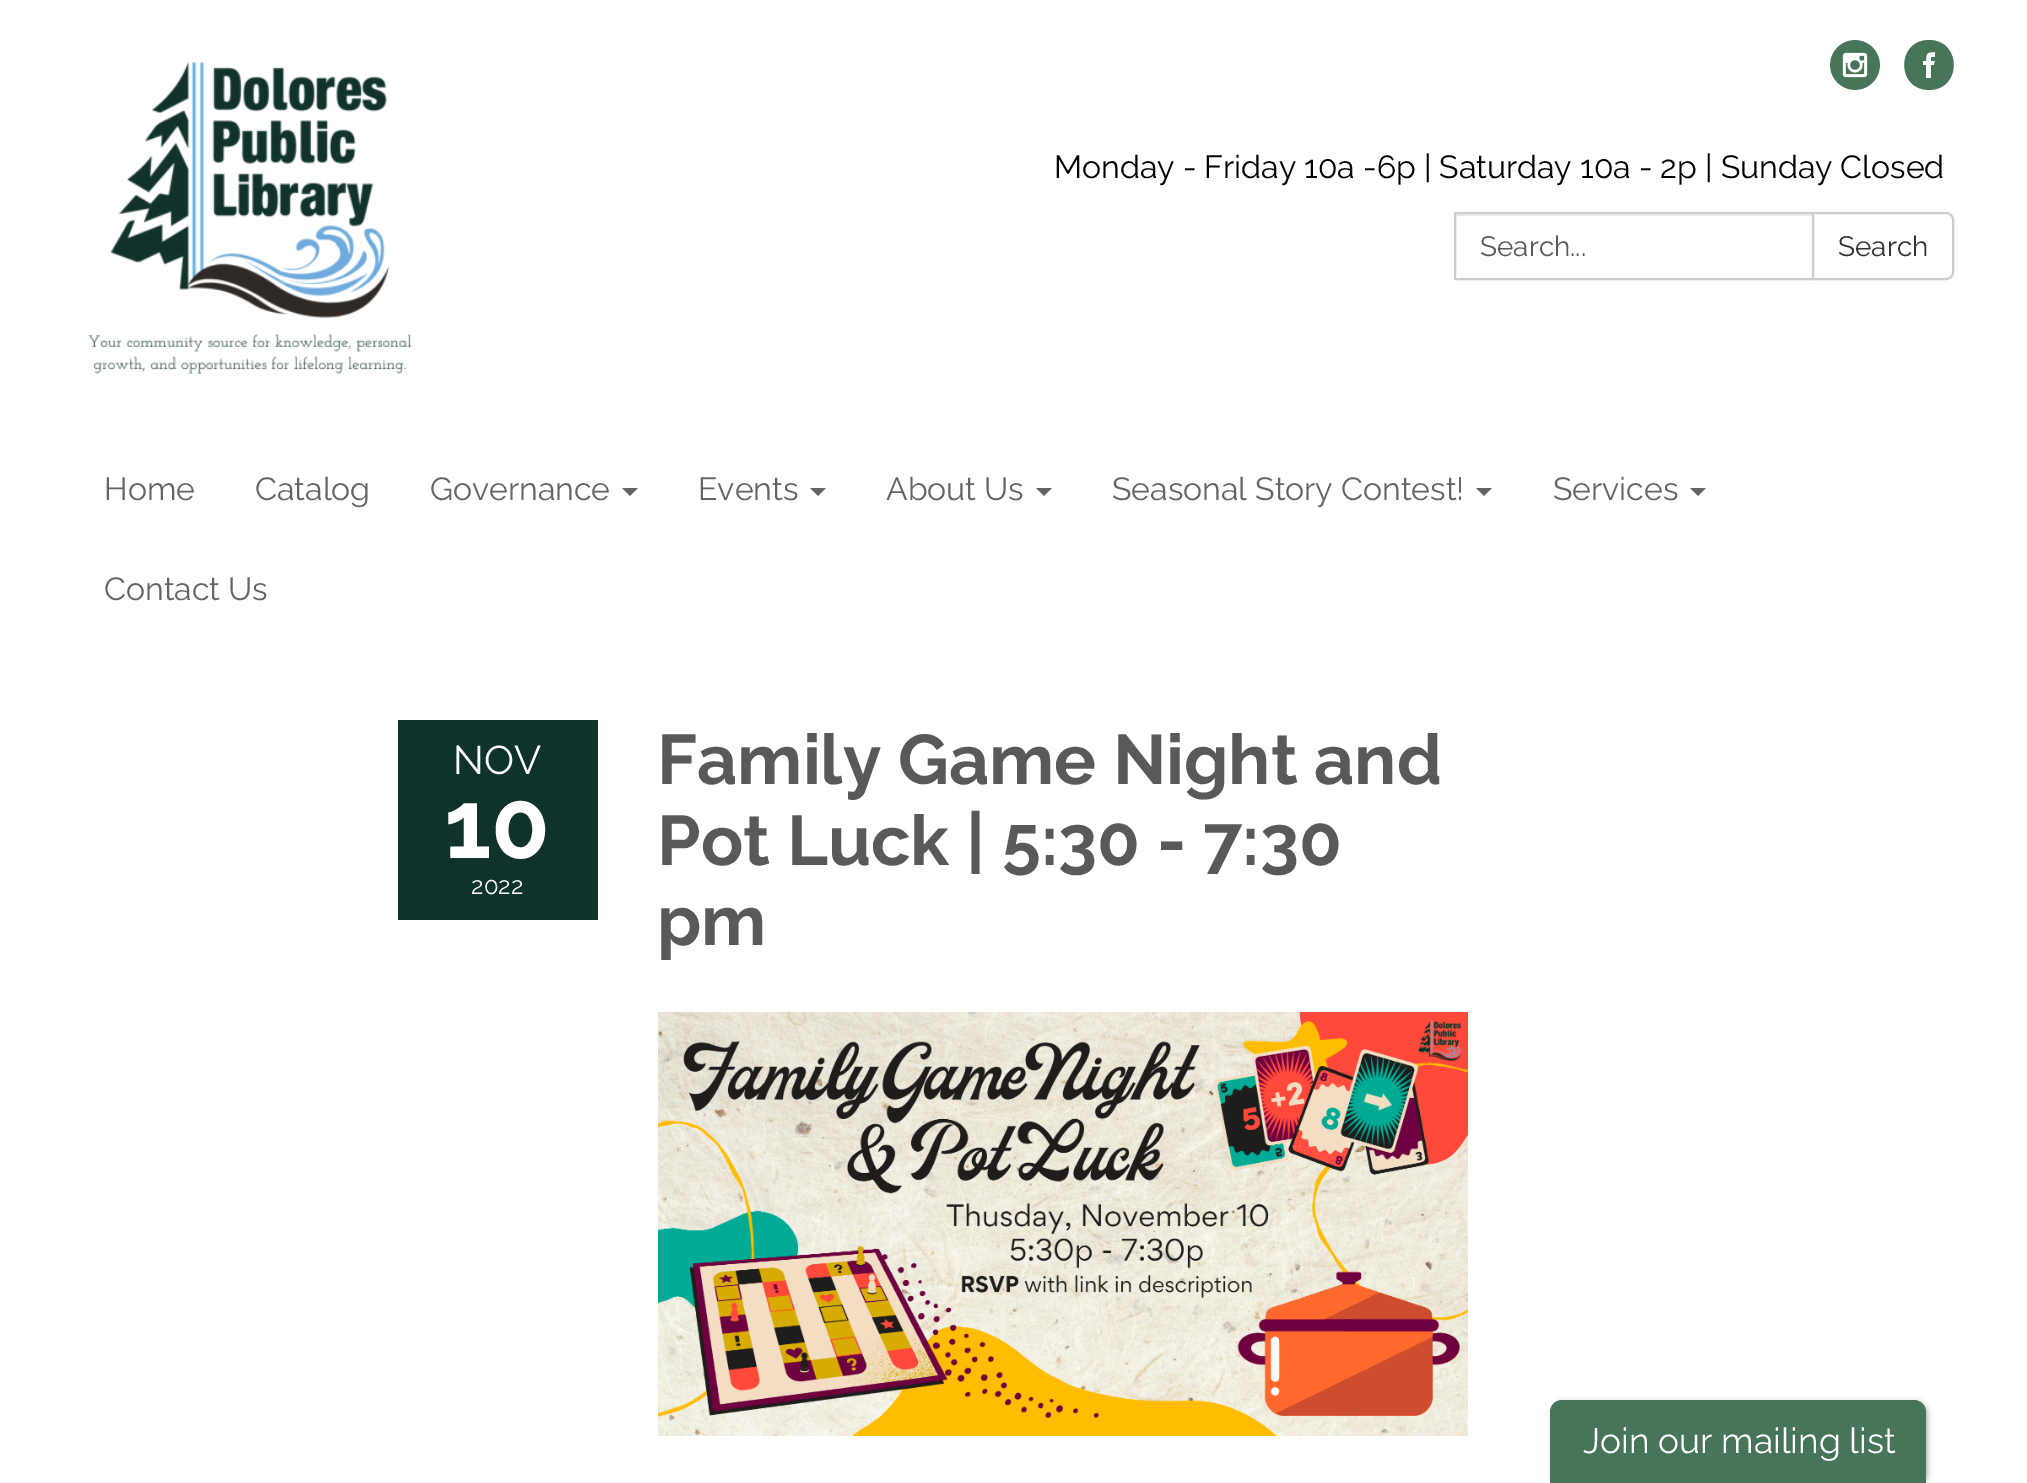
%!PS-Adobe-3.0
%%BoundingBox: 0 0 2027 1483
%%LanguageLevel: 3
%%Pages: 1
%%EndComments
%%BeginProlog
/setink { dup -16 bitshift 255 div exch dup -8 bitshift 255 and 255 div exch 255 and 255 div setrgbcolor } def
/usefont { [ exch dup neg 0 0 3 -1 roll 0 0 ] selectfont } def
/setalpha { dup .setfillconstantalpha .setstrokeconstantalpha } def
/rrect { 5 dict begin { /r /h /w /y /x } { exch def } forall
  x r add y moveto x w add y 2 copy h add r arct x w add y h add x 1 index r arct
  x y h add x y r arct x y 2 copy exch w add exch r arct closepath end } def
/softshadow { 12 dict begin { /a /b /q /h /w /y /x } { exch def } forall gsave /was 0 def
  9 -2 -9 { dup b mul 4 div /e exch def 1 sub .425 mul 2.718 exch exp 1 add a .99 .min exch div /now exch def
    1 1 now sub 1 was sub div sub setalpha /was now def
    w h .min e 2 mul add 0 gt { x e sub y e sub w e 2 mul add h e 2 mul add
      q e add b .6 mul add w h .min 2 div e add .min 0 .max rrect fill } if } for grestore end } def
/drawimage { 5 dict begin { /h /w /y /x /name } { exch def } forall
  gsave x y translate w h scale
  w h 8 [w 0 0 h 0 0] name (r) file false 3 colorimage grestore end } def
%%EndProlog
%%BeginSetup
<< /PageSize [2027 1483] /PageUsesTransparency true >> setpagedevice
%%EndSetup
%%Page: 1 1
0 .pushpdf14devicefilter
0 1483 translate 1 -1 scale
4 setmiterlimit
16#FFFFFF setink
0 0 2027 1483 rectfill
(img1.raw) 88 62 324 312 drawimage
(img2.raw) 1830 40 50 50 drawimage
16#46755A setink
1929 40 moveto 1896 40 1896 90 1929 90 curveto 1962 90 1962 40 1929 40 curveto closepath 1934 65 moveto 1931 65 lineto 1931 78 lineto 1926 78 lineto 1926 65 lineto 1923 65 lineto 1923 61 lineto 1926 61 lineto 1926 53 1927 52 1935 52 curveto 1935 57 lineto 1931 57 1931 57 1931 61 curveto 1935 61 lineto closepath fill
/Raleway-Regular 32 usefont
16#000000 setink
1054 178 moveto (Monday - Friday 10a -6p | Saturday 10a - 2p | Sunday Closed) show
16#ECECEC setink
1456 214 356 2 rectfill
16#CCCCCC setink
2 setlinewidth
1455 213 358 66 rectstroke
/Raleway-Regular 28 usefont
16#58595B setink
1480 256 moveto (Search...) show
16#FFFFFF setink
1813 213 moveto 1946 213 lineto 1950 213 1953 216 1953 220 curveto 1953 272 lineto 1953 276 1950 279 1946 279 curveto 1813 279 lineto closepath gsave fill grestore
16#CCCCCC setink
stroke
16#333333 setink
1838 256 moveto (Search) show
/Raleway-Regular 32 usefont
16#646464 setink
[
    [(Home) 104 500]
    [(Catalog) 255 500]
    [(Governance) 430 500]
] { aload pop moveto show } forall
622 488 moveto 638 488 lineto 630 496 lineto closepath fill
698 500 moveto (Events) show
810 488 moveto 826 488 lineto 818 496 lineto closepath fill
886 500 moveto (About Us) show
1036 488 moveto 1052 488 lineto 1044 496 lineto closepath fill
1112 500 moveto (Seasonal Story Contest!) show
1476 488 moveto 1492 488 lineto 1484 496 lineto closepath fill
1553 500 moveto (Services) show
1690 488 moveto 1706 488 lineto 1698 496 lineto closepath fill
104 600 moveto (Contact Us) show
16#0F322A setink
398 720 200 200 rectfill
/Raleway-Regular 40 usefont
16#FFFFFF setink
453 774 moveto (NOV) show
/Raleway-Bold 96 usefont
444 858 moveto (10) show
/Raleway-Regular 24 usefont
471 894 moveto (2022) show
/Raleway-Bold 70 usefont
16#58595B setink
[
    [(Family Game Night and) 657 784]
    [(Pot Luck | 5:30 - 7:30) 657 865]
    [(pm) 657 945]
] { aload pop moveto show } forall
(img3.raw) 658 1012 810 424 drawimage
16#000000 setink
1552 1402 376 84 12 3 0.3 softshadow
16#46755A setink
1562 1400 moveto 1914 1400 lineto 1920.5 1400 1926 1405.5 1926 1412 curveto 1926 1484 lineto 1550 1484 lineto 1550 1412 lineto 1550 1405.5 1555.5 1400 1562 1400 curveto closepath fill
/Raleway-Regular 35.25 usefont
16#FFFFFF setink
1583 1453 moveto (Join our mailing list) show
.poppdf14devicefilter showpage
%%EOF
